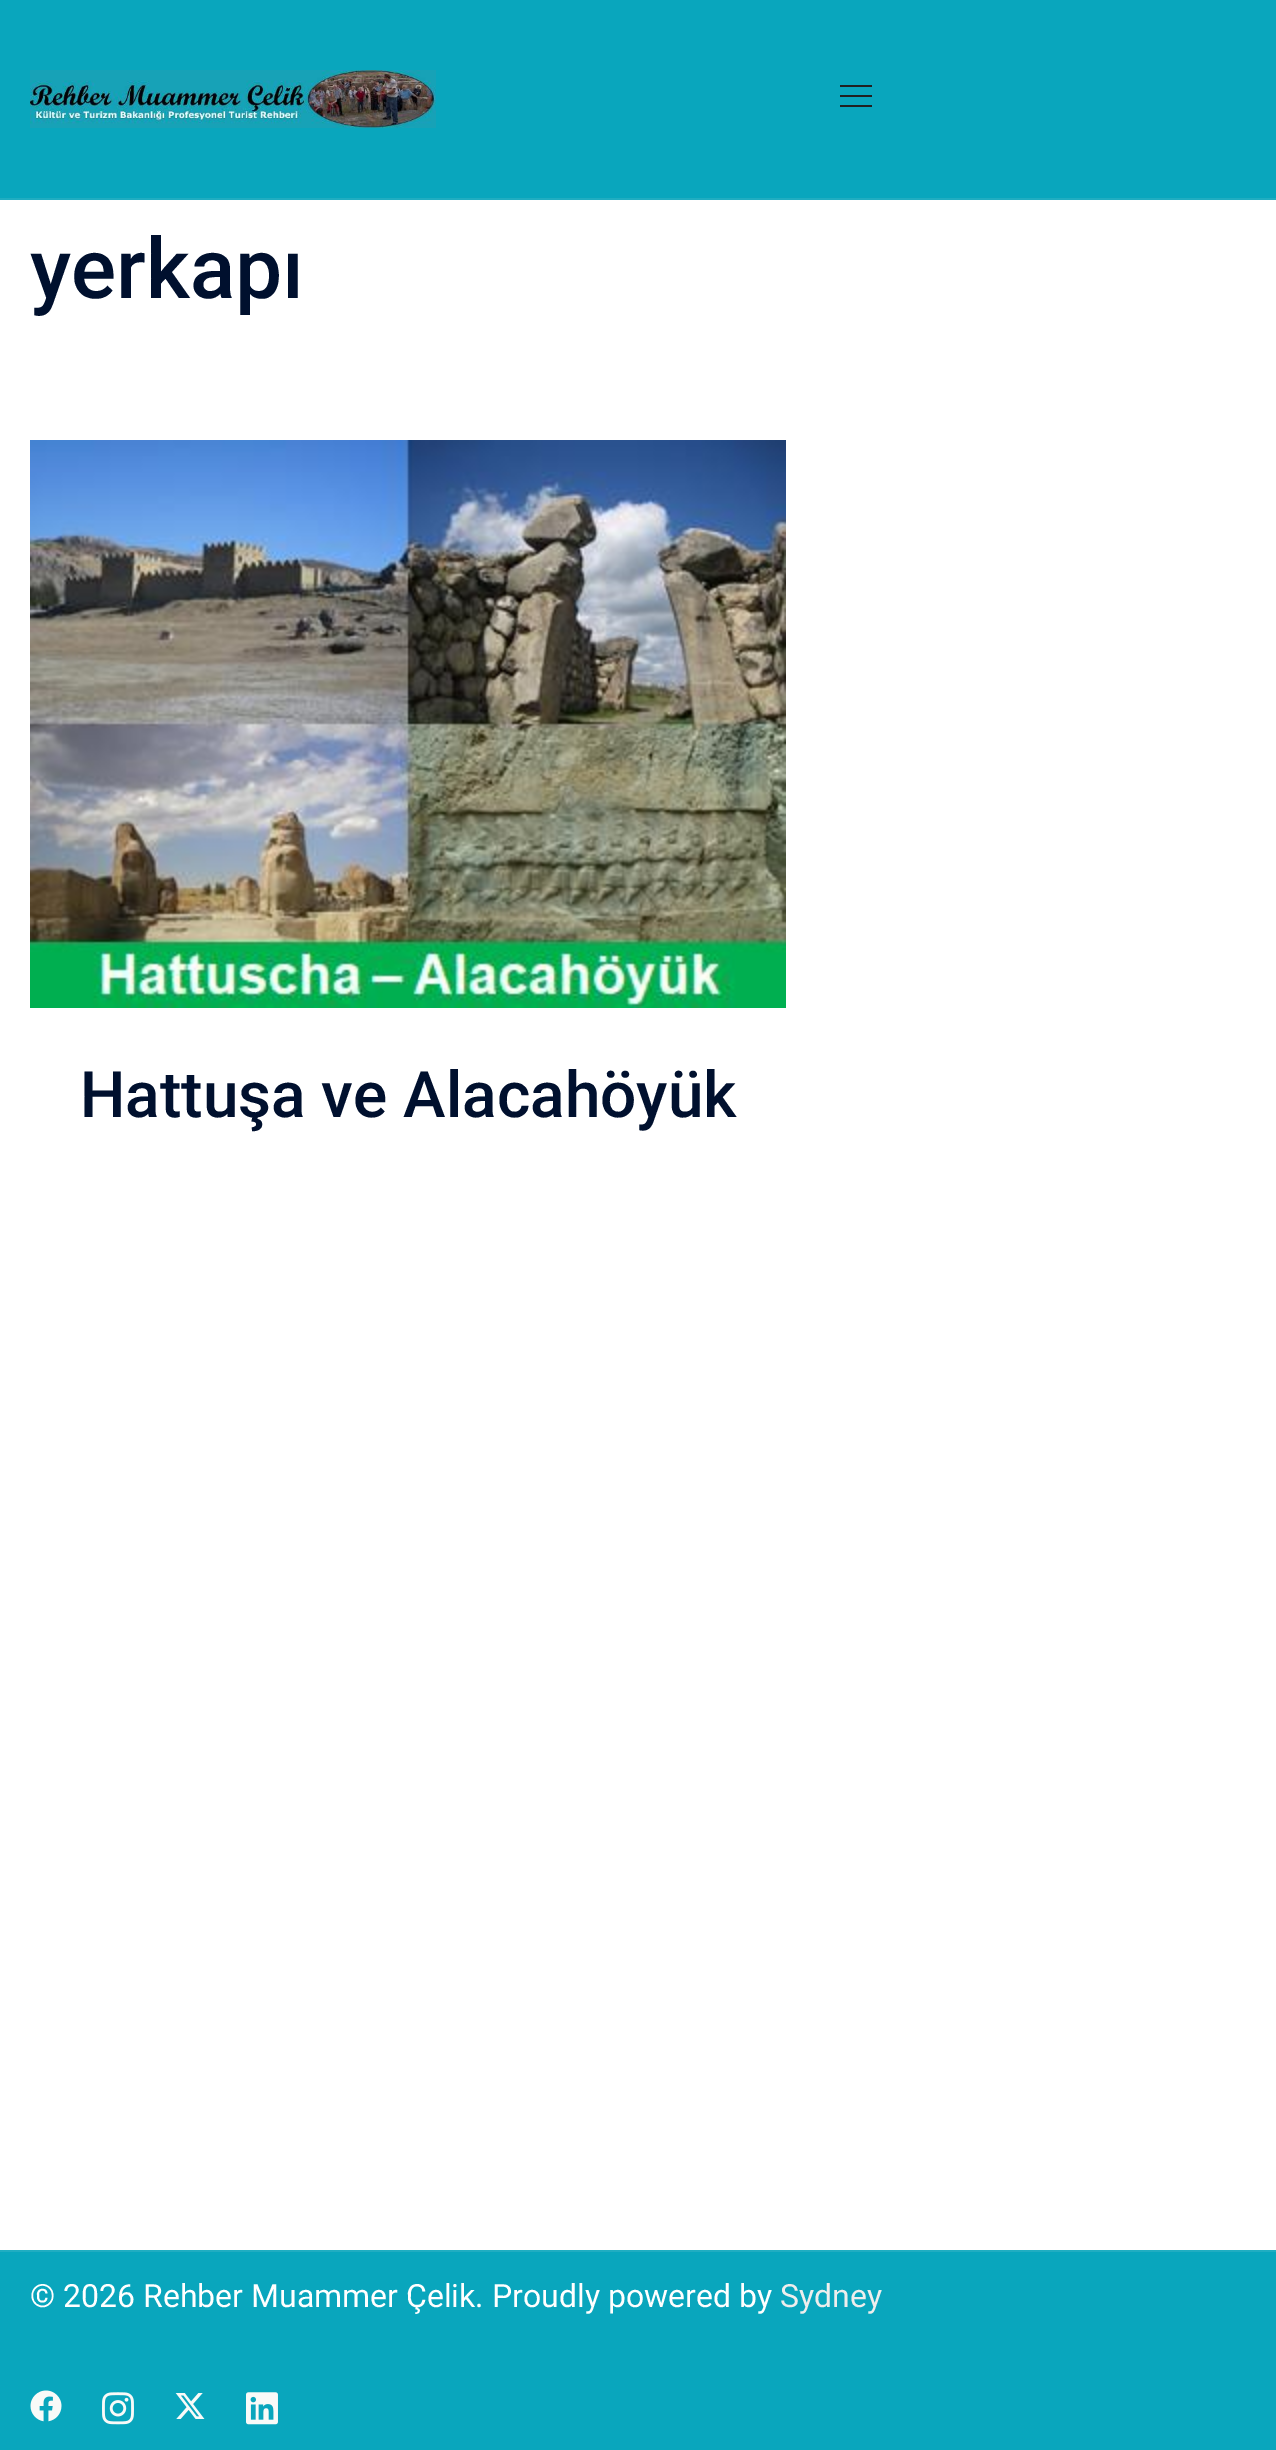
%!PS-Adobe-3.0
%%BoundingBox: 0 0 1276 2450
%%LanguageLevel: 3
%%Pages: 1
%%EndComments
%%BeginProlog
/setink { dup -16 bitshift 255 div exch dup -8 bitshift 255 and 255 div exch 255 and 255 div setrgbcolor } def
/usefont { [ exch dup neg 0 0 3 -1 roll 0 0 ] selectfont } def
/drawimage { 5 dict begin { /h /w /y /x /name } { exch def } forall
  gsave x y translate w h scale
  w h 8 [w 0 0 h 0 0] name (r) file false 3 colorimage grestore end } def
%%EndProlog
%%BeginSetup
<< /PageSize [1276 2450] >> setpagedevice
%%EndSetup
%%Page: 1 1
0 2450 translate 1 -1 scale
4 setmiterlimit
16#FFFFFF setink
0 0 1276 2450 rectfill
16#09A6BD setink
0 0 1276 198 rectfill
16#20ADC1 setink
0 198 1276 2 rectfill
(img1.raw) 30 70 406 58 drawimage
[
    [840 85 32 2 16#212121]
    [840 95 32 2 16#212121]
    [840 105 32 2 16#212121]
] { aload pop setink rectfill } forall
/Roboto-Medium 84 usefont
16#00102E setink
30 298 moveto (yerkapı) show
(img2.raw) 30 440 756 568 drawimage
/Roboto-Medium 64 usefont
80 1117 moveto (Hattuşa ve Alacahöyük) show
16#09A6BD setink
0 2252 1276 198 rectfill
16#20ADC1 setink
0 2250 1276 2 rectfill
/Roboto-Regular 32 usefont
16#FFFFFF setink
30 2307 moveto (© 2026 Rehber Muammer Çelik. Proudly powered by) show
16#EEEEED setink
780 2307 moveto (Sydney) show
(img3.raw) 30 2390 32 32 drawimage
(img4.raw) 102 2392 32 33 drawimage
(img5.raw) 175 2393 30 26 drawimage
(img6.raw) 246 2392 32 33 drawimage
showpage
%%EOF
